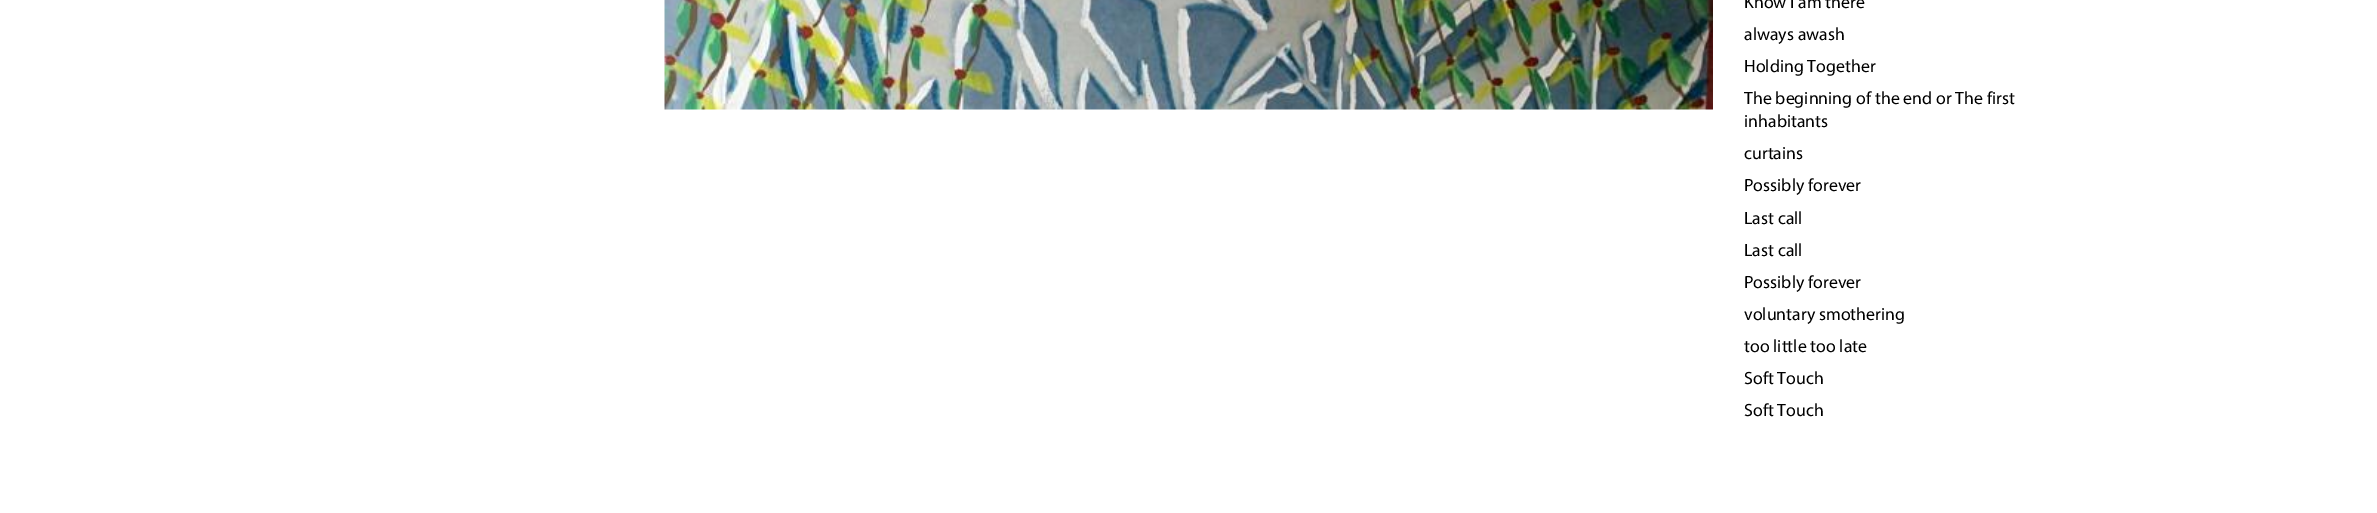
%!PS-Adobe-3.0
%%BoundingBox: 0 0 2377 513
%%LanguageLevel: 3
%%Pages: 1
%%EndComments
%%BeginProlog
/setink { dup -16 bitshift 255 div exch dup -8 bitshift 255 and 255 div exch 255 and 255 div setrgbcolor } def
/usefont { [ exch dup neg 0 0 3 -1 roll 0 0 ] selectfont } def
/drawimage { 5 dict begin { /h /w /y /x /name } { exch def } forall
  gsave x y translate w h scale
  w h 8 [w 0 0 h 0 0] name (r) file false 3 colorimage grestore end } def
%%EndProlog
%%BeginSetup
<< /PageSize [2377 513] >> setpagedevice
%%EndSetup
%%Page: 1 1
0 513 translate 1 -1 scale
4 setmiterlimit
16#FFFFFF setink
0 0 2377 513 rectfill
(img1.raw) 664 0 1049 110 drawimage
/Myriad-Regular 17.8 usefont
16#000000 setink
[
    [(Know I am there) 1744 8]
    [(always awash) 1744 40]
    [(Holding Together) 1744 72]
    [(The beginning of the end or The first) 1744 104]
    [(inhabitants) 1744 127]
    [(curtains) 1744 159]
    [(Possibly forever) 1744 191]
    [(Last call) 1744 224]
    [(Last call) 1744 256]
    [(Possibly forever) 1744 288]
    [(voluntary smothering) 1744 320]
    [(too little too late) 1744 352]
    [(Soft Touch) 1744 384]
    [(Soft Touch) 1744 416]
] { aload pop moveto show } forall
showpage
%%EOF
